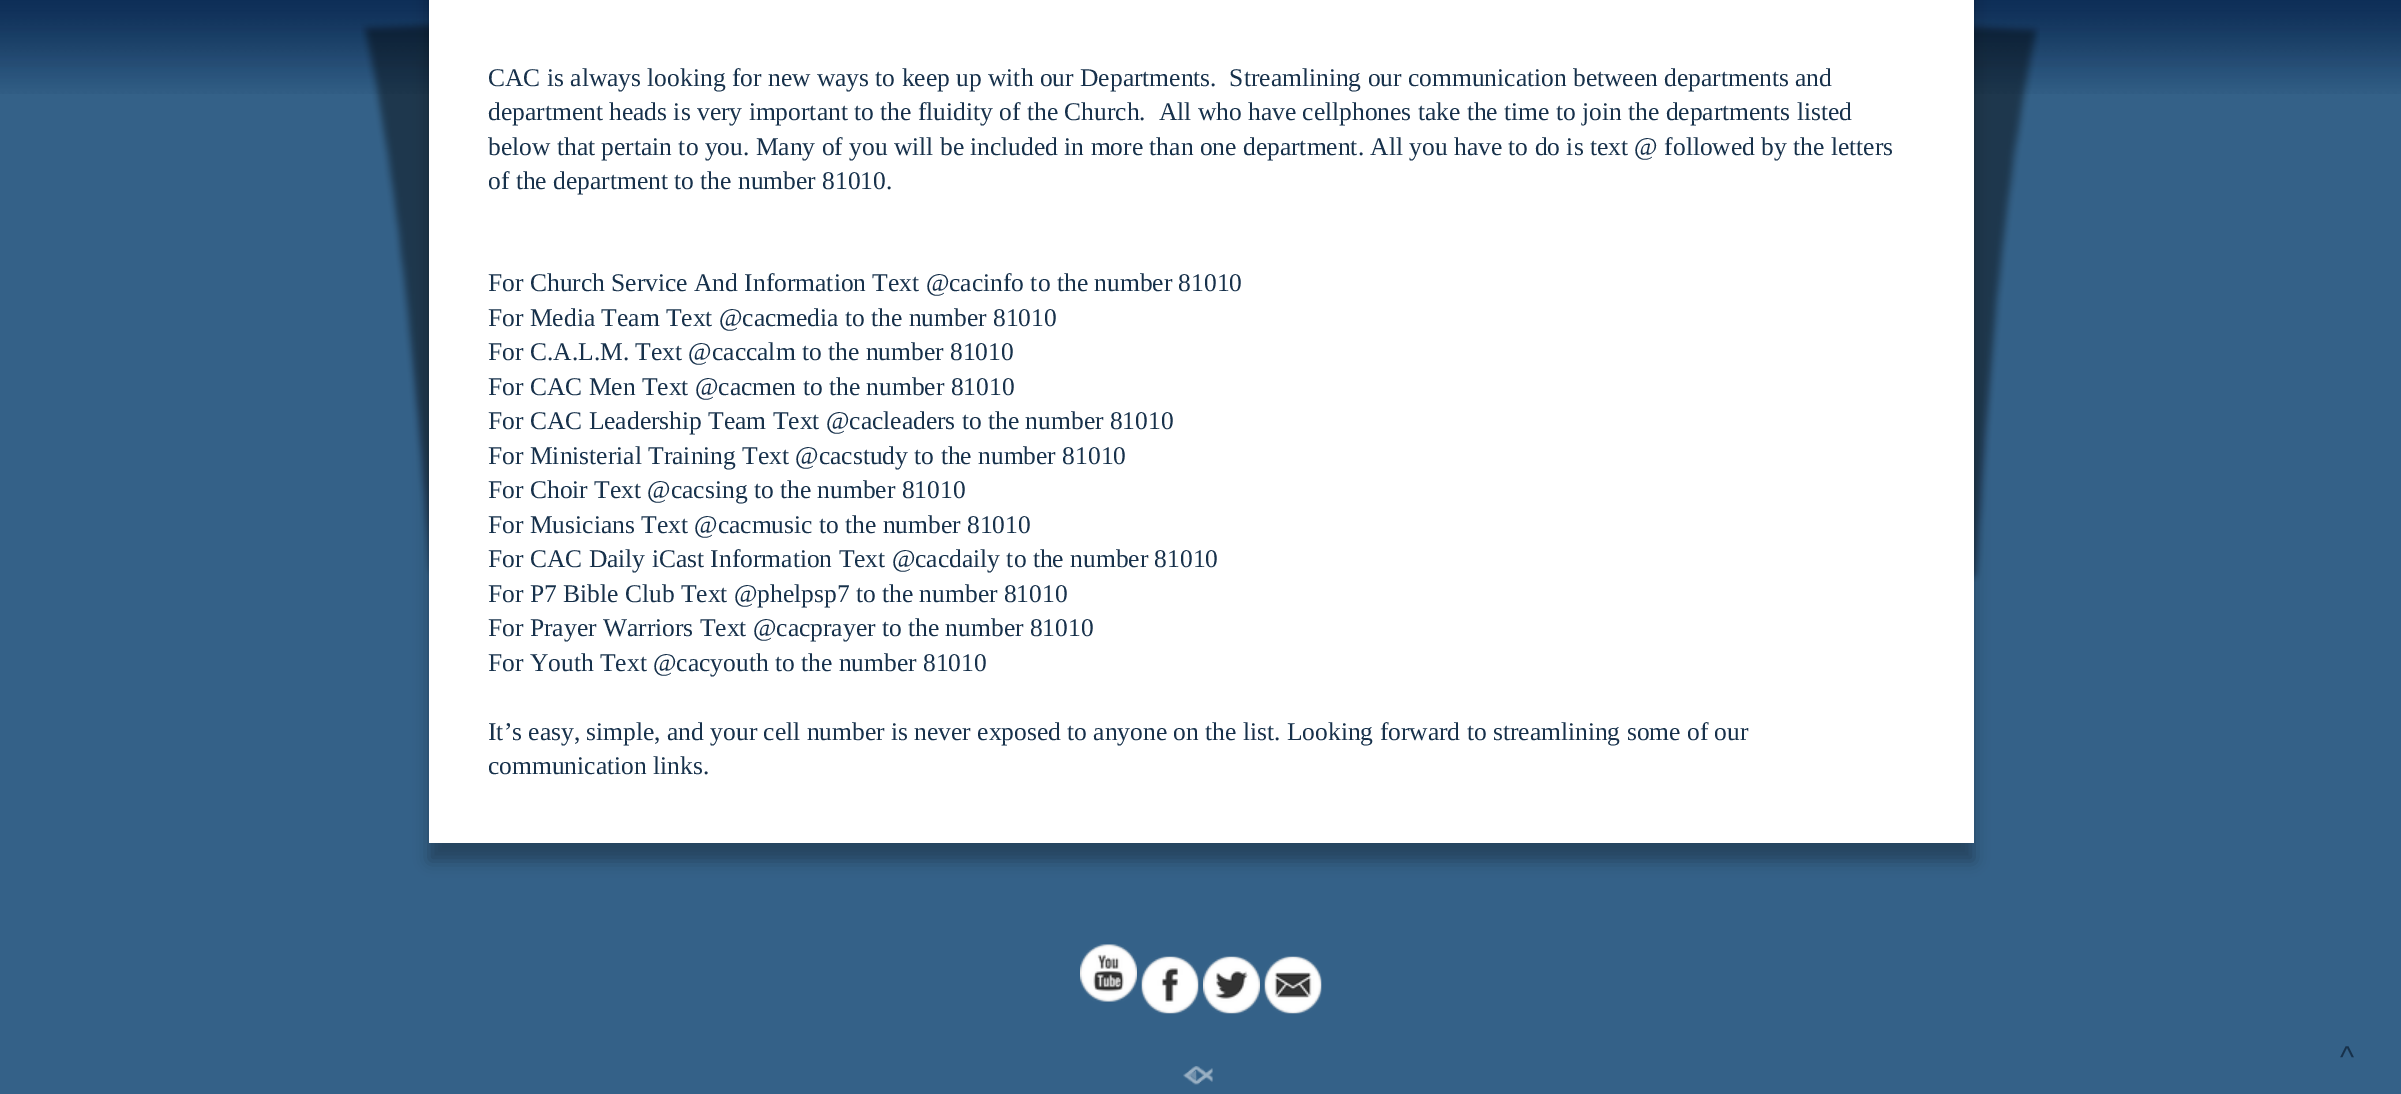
%!PS-Adobe-3.0
%%BoundingBox: 0 0 2401 1094
%%LanguageLevel: 3
%%Pages: 1
%%EndComments
%%BeginProlog
/setink { dup -16 bitshift 255 div exch dup -8 bitshift 255 and 255 div exch 255 and 255 div setrgbcolor } def
/usefont { [ exch dup neg 0 0 3 -1 roll 0 0 ] selectfont } def
/setalpha { dup .setfillconstantalpha .setstrokeconstantalpha } def
/rrect { 5 dict begin { /r /h /w /y /x } { exch def } forall
  x r add y moveto x w add y 2 copy h add r arct x w add y h add x 1 index r arct
  x y h add x y r arct x y 2 copy exch w add exch r arct closepath end } def
/softshadow { 12 dict begin { /a /b /q /h /w /y /x } { exch def } forall gsave /was 0 def
  9 -2 -9 { dup b mul 4 div /e exch def 1 sub .425 mul 2.718 exch exp 1 add a .99 .min exch div /now exch def
    1 1 now sub 1 was sub div sub setalpha /was now def
    w h .min e 2 mul add 0 gt { x e sub y e sub w e 2 mul add h e 2 mul add
      q e add b .6 mul add w h .min 2 div e add .min 0 .max rrect fill } if } for grestore end } def
/drawimage { 5 dict begin { /h /w /y /x /name } { exch def } forall
  gsave x y translate w h scale
  w h 8 [w 0 0 h 0 0] name (r) file false 3 colorimage grestore end } def
%%EndProlog
%%BeginSetup
<< /PageSize [2401 1094] /PageUsesTransparency true >> setpagedevice
%%EndSetup
%%Page: 1 1
0 .pushpdf14devicefilter
0 1094 translate 1 -1 scale
4 setmiterlimit
16#346188 setink
0 0 2401 1094 rectfill
(img1.raw) 0 0 2401 94 drawimage
(img2.raw) 361 20 1679 562 drawimage
16#000000 setink
429 -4 1545 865 0 7.5 0.3 softshadow
16#FFFFFF setink
429 0 1545 843 rectfill
/LiberationSerif-Regular 25.5 usefont
16#17314B setink
[
    [(CAC is always looking for new ways to keep up with our Departments.  Streamlining our communication between departments and) 488 86]
    [(department heads is very important to the fluidity of the Church.  All who have cellphones take the time to join the departments listed) 488 120]
    [(below that pertain to you. Many of you will be included in more than one department. All you have to do is text @ followed by the letters) 488 155]
    [(of the department to the number 81010.) 488 189]
    [(For Church Service And Information Text @cacinfo to the number 81010) 488 291]
    [(For Media Team Text @cacmedia to the number 81010) 488 326]
    [(For C.A.L.M. Text @caccalm to the number 81010) 488 360]
    [(For CAC Men Text @cacmen to the number 81010) 488 395]
    [(For CAC Leadership Team Text @cacleaders to the number 81010) 488 429]
    [(For Ministerial Training Text @cacstudy to the number 81010) 488 464]
    [(For Choir Text @cacsing to the number 81010) 488 498]
    [(For Musicians Text @cacmusic to the number 81010) 488 533]
    [(For CAC Daily iCast Information Text @cacdaily to the number 81010) 488 567]
    [(For P7 Bible Club Text @phelpsp7 to the number 81010) 488 602]
    [(For Prayer Warriors Text @cacprayer to the number 81010) 488 636]
    [(For Youth Text @cacyouth to the number 81010) 488 671]
    [(It’s easy, simple, and your cell number is never exposed to anyone on the list. Looking forward to streamlining some of our) 488 740]
    [(communication links.) 488 774]
] { aload pop moveto show } forall
(img3.raw) 1080 944 57 58 drawimage
(img4.raw) 1141 956 58 58 drawimage
(img5.raw) 1203 956 57 58 drawimage
(img6.raw) 1264 956 58 58 drawimage
(img7.raw) 1183 1066 30 19 drawimage
/LiberationSans-Regular 30 usefont
2340 1067 moveto (^) show
.poppdf14devicefilter showpage
%%EOF
